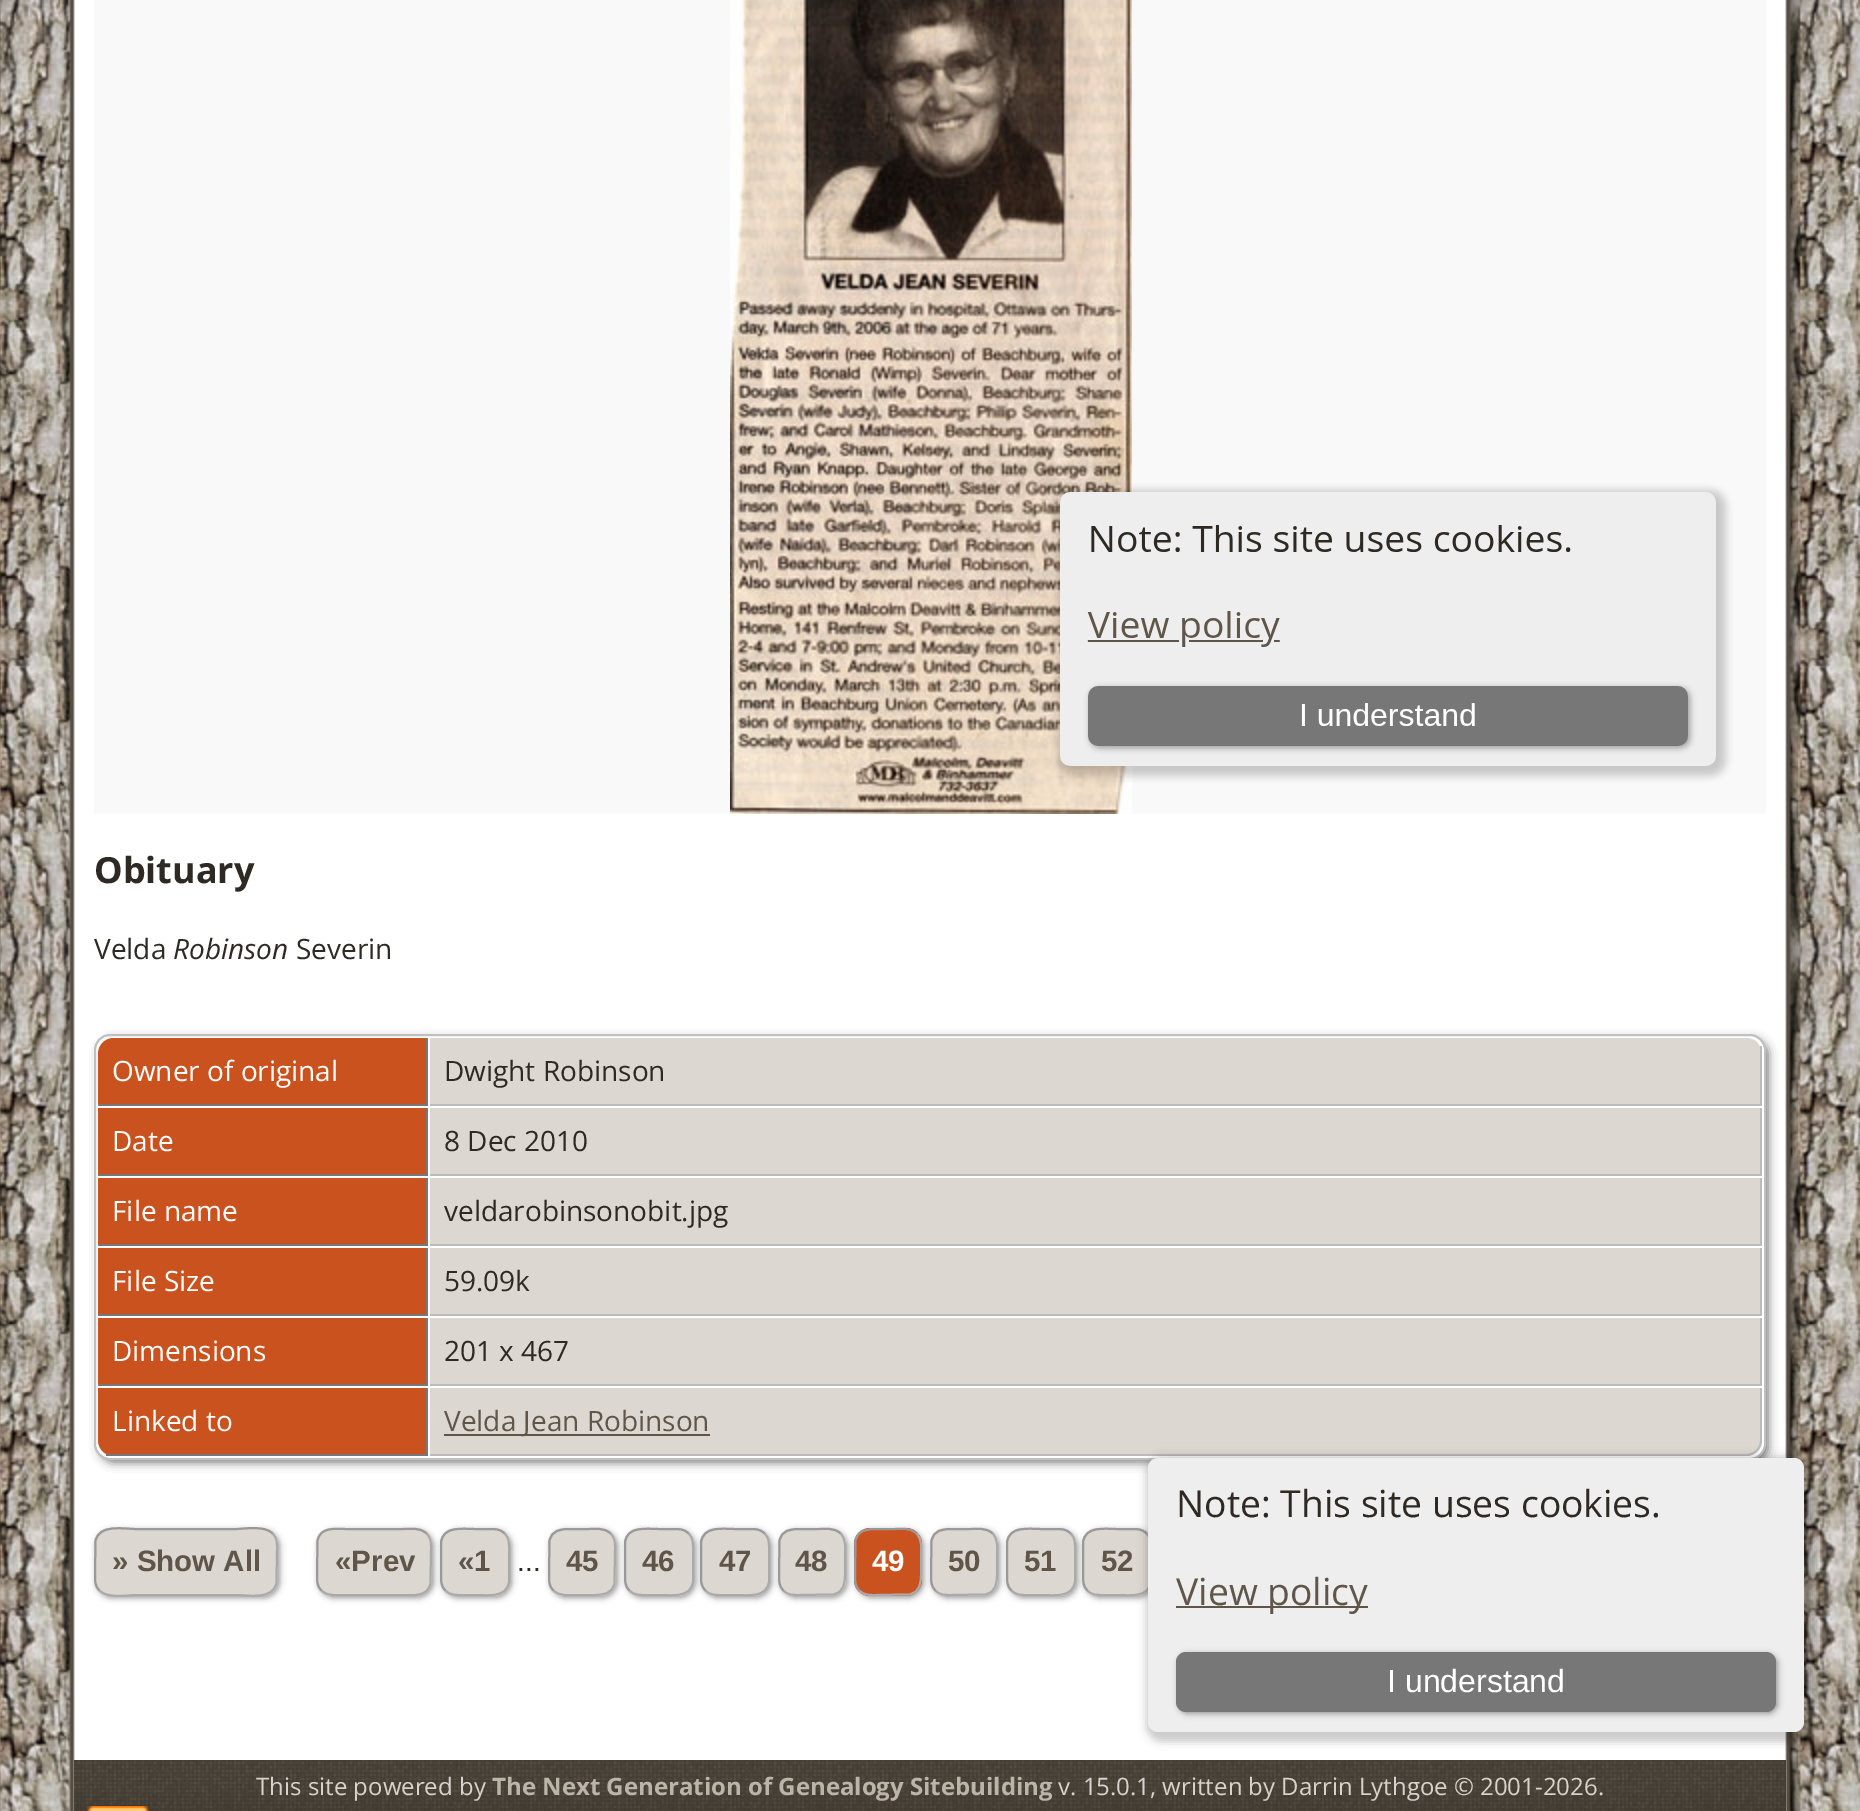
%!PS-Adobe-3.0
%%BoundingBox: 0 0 1860 1811
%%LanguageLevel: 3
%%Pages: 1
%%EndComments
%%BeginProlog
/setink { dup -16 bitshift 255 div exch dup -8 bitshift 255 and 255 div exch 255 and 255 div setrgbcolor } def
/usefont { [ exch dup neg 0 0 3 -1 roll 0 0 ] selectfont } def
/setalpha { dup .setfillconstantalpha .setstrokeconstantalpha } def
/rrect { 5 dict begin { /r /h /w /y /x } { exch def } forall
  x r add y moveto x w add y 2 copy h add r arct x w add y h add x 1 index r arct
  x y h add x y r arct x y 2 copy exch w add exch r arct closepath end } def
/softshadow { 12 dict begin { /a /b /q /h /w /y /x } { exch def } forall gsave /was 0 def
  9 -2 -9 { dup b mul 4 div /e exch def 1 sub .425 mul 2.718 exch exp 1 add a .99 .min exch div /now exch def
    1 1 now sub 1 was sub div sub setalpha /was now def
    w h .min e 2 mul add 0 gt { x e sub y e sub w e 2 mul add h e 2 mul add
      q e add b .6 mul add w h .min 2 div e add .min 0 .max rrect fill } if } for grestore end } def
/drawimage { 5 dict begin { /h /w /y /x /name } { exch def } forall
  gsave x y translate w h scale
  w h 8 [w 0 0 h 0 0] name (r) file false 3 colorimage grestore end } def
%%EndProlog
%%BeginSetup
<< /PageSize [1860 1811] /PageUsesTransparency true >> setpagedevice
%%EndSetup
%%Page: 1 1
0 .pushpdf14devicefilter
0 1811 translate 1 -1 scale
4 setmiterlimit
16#FFFFFF setink
0 0 1860 1811 rectfill
(img1.raw) 0 0 1860 1811 drawimage
(img2.raw) 67 0 31 1811 drawimage
98 814 1664 946 rectfill
(img3.raw) 1762 0 36 1811 drawimage
(img4.raw) 94 0 1672 814 drawimage
/OpenSans-Bold 36 usefont
16#2E2A23 setink
94 883 moveto (Obituary) show
/OpenSans-Regular 28 usefont
94 959 moveto (Velda) show
/OpenSans-Italic 28 usefont
173 959 moveto (Robinson) show
/OpenSans-Regular 28 usefont
296 959 moveto (Severin) show
16#666666 setink
100 1040 1668 422 14 5 1 softshadow
16#FFFFFF setink
95 1035 1670 424 15 rrect gsave fill grestore
16#C0C0C0 setink
2 setlinewidth
stroke
16#CA521E setink
114 1038 moveto 428 1038 lineto 428 1106 lineto 98 1106 lineto 98 1054 lineto 98 1045 105 1038 114 1038 curveto closepath fill
16#777777 setink
426 1038 2 68 rectfill
98 1104 330 2 rectfill
16#FFFFFF setink
112 1081 moveto (Owner of original) show
16#DCD7D1 setink
430 1038 moveto 1746 1038 lineto 1755 1038 1762 1045 1762 1054 curveto 1762 1106 lineto 430 1106 lineto closepath fill
16#BBBBBB setink
1760 1046 2 60 rectfill
430 1104 1332 2 rectfill
16#2E2A23 setink
444 1081 moveto (Dwight Robinson) show
[
    [98 1108 328 66 16#CA521E]
    [426 1108 2 68 16#777777]
    [98 1174 330 2 16#777777]
] { aload pop setink rectfill } forall
16#FFFFFF setink
112 1151 moveto (Date) show
[
    [430 1108 1330 66 16#DCD7D1]
    [1760 1108 2 68 16#BBBBBB]
    [430 1174 1332 2 16#BBBBBB]
] { aload pop setink rectfill } forall
16#2E2A23 setink
444 1151 moveto (8 Dec 2010) show
[
    [98 1178 328 66 16#CA521E]
    [426 1178 2 68 16#777777]
    [98 1244 330 2 16#777777]
] { aload pop setink rectfill } forall
16#FFFFFF setink
112 1221 moveto (File name) show
[
    [430 1178 1330 66 16#DCD7D1]
    [1760 1178 2 68 16#BBBBBB]
    [430 1244 1332 2 16#BBBBBB]
] { aload pop setink rectfill } forall
16#2E2A23 setink
444 1221 moveto (veldarobinsonobit.jpg) show
[
    [98 1248 328 66 16#CA521E]
    [426 1248 2 68 16#777777]
    [98 1314 330 2 16#777777]
] { aload pop setink rectfill } forall
16#FFFFFF setink
112 1291 moveto (File Size) show
[
    [430 1248 1330 66 16#DCD7D1]
    [1760 1248 2 68 16#BBBBBB]
    [430 1314 1332 2 16#BBBBBB]
] { aload pop setink rectfill } forall
16#2E2A23 setink
444 1291 moveto (59.09k) show
[
    [98 1318 328 66 16#CA521E]
    [426 1318 2 68 16#777777]
    [98 1384 330 2 16#777777]
] { aload pop setink rectfill } forall
16#FFFFFF setink
112 1361 moveto (Dimensions) show
[
    [430 1318 1330 66 16#DCD7D1]
    [1760 1318 2 68 16#BBBBBB]
    [430 1384 1332 2 16#BBBBBB]
] { aload pop setink rectfill } forall
16#2E2A23 setink
444 1361 moveto (201 x 467) show
16#CA521E setink
98 1388 moveto 428 1388 lineto 428 1456 lineto 114 1456 lineto 105 1456 98 1449 98 1440 curveto closepath fill
16#777777 setink
426 1388 2 68 rectfill
106 1454 322 2 rectfill
16#FFFFFF setink
112 1431 moveto (Linked to) show
16#DCD7D1 setink
430 1388 moveto 1762 1388 lineto 1762 1440 lineto 1762 1449 1755 1456 1746 1456 curveto 430 1456 lineto closepath fill
16#BBBBBB setink
430 1388 moveto 1762 1388 lineto 1762 1440 lineto 1762 1449 1755 1456 1746 1456 curveto 430 1456 lineto closepath 430 1388 moveto 1760 1388 lineto 1760 1440 lineto 1760 1448 1754 1454 1746 1454 curveto 430 1454 lineto closepath eofill
16#5F5649 setink
444 1434 266 2 rectfill
444 1431 moveto (Velda Jean Robinson) show
16#999999 setink
96 1530 184 68 16 3 1 softshadow
16#DCD7D1 setink
94 1528 184 68 16 rrect fill
16#AAAAAA setink
272.5 1533.5 moveto 277.5 1538 277 1544 277 1550 curveto 276.5 1583 lineto 273 1600.5 247.5 1595 236.5 1595 curveto 135.5 1595 lineto 128.5 1595 107.5 1599 99.5 1590.5 curveto stroke
16#999999 setink
99.5 1590.5 moveto 94.5 1586 95 1580 95 1574 curveto 95.5 1541 lineto 99 1523.5 124.5 1529 135.5 1529 curveto 236.5 1529 lineto 243.5 1529 264.5 1525 272.5 1533.5 curveto stroke
/LiberationSans-Bold 29.5 usefont
16#5F5649 setink
112 1571 moveto (» Show All) show
16#999999 setink
318 1530 116 68 16 3 1 softshadow
16#DCD7D1 setink
316 1528 116 68 16 rrect fill
16#AAAAAA setink
426.5 1533.5 moveto 431.5 1538 431 1544 431 1550 curveto 430.5 1583 lineto 428 1597.5 413 1595 402 1595 curveto 346 1595 lineto 338 1595 328 1597 321.5 1590.5 curveto stroke
16#999999 setink
321.5 1590.5 moveto 316.5 1586 317 1580 317 1574 curveto 317.5 1541 lineto 320 1526.5 335 1529 346 1529 curveto 402 1529 lineto 410 1529 420 1527 426.5 1533.5 curveto stroke
16#5F5649 setink
335 1571 moveto («Prev) show
16#999999 setink
442 1530 70 68 16 3 1 softshadow
16#DCD7D1 setink
440 1528 70 68 16 rrect fill
16#AAAAAA setink
504.5 1533.5 moveto 509.5 1538 509 1544 509 1550 curveto 509 1581.5 lineto 507 1598.5 487 1595 475 1595 curveto 462.5 1595 lineto 456 1595 450 1595.5 445.5 1590.5 curveto stroke
16#999999 setink
445.5 1590.5 moveto 440.5 1586 441 1580 441 1574 curveto 441 1542.5 lineto 443 1525.5 463 1529 475 1529 curveto 487.5 1529 lineto 494 1529 500 1528.5 504.5 1533.5 curveto stroke
16#5F5649 setink
458 1571 moveto («1) show
/LiberationSans-Regular 28 usefont
16#2E2A23 setink
517 1571 moveto (...) show
16#999999 setink
550 1530 68 68 16 3 1 softshadow
16#DCD7D1 setink
548 1528 68 68 16 rrect fill
16#AAAAAA setink
610.5 1533.5 moveto 615.5 1538 615 1544 615 1550 curveto 614.5 1583 lineto 612.5 1594 603.5 1595 594 1595 curveto 576 1595 lineto 568.5 1595 559.5 1596.5 553.5 1590.5 curveto stroke
16#999999 setink
553.5 1590.5 moveto 548.5 1586 549 1580 549 1574 curveto 549.5 1541 lineto 551.5 1530 560.5 1529 570 1529 curveto 588 1529 lineto 595.5 1529 604.5 1527.5 610.5 1533.5 curveto stroke
/LiberationSans-Bold 29.5 usefont
16#5F5649 setink
566 1571 moveto (45) show
16#999999 setink
626 1530 70 68 16 3 1 softshadow
16#DCD7D1 setink
624 1528 70 68 16 rrect fill
16#AAAAAA setink
688.5 1533.5 moveto 693.5 1538 693 1544 693 1550 curveto 693 1581.5 lineto 691 1598.5 671 1595 659 1595 curveto 646.5 1595 lineto 640 1595 634 1595.5 629.5 1590.5 curveto stroke
16#999999 setink
629.5 1590.5 moveto 624.5 1586 625 1580 625 1574 curveto 625 1542.5 lineto 627 1525.5 647 1529 659 1529 curveto 671.5 1529 lineto 678 1529 684 1528.5 688.5 1533.5 curveto stroke
16#5F5649 setink
642 1571 moveto (46) show
16#999999 setink
702 1530 70 68 16 3 1 softshadow
16#DCD7D1 setink
700 1528 70 68 16 rrect fill
16#AAAAAA setink
764.5 1533.5 moveto 769.5 1538 769 1544 769 1550 curveto 769 1581.5 lineto 767 1598.5 747 1595 735 1595 curveto 722.5 1595 lineto 716 1595 710 1595.5 705.5 1590.5 curveto stroke
16#999999 setink
705.5 1590.5 moveto 700.5 1586 701 1580 701 1574 curveto 701 1542.5 lineto 703 1525.5 723 1529 735 1529 curveto 747.5 1529 lineto 754 1529 760 1528.5 764.5 1533.5 curveto stroke
16#5F5649 setink
719 1571 moveto (47) show
16#999999 setink
780 1530 68 68 16 3 1 softshadow
16#DCD7D1 setink
778 1528 68 68 16 rrect fill
16#AAAAAA setink
840.5 1533.5 moveto 846.5 1539.5 845 1548.5 845 1556 curveto 845 1574 lineto 845 1583.5 844 1592.5 833 1594.5 curveto 800 1595 lineto 794 1595 788 1595.5 783.5 1590.5 curveto stroke
16#999999 setink
783.5 1590.5 moveto 778.5 1586 779 1580 779 1574 curveto 779.5 1541 lineto 781.5 1530 790.5 1529 800 1529 curveto 818 1529 lineto 825.5 1529 834.5 1527.5 840.5 1533.5 curveto stroke
16#5F5649 setink
795 1571 moveto (48) show
16#999999 setink
856 1530 68 68 16 3 1 softshadow
16#CA521E setink
854 1528 68 68 16 rrect fill
16#AAAAAA setink
916.5 1533.5 moveto 922.5 1539.5 921 1548.5 921 1556 curveto 921 1574 lineto 921 1583.5 920 1592.5 909 1594.5 curveto 876 1595 lineto 870 1595 864 1595.5 859.5 1590.5 curveto stroke
16#999999 setink
859.5 1590.5 moveto 854.5 1586 855 1580 855 1574 curveto 855.5 1541 lineto 857.5 1530 866.5 1529 876 1529 curveto 894 1529 lineto 901.5 1529 910.5 1527.5 916.5 1533.5 curveto stroke
16#FFFFFF setink
872 1571 moveto (49) show
16#999999 setink
932 1530 68 68 16 3 1 softshadow
16#DCD7D1 setink
930 1528 68 68 16 rrect fill
16#AAAAAA setink
992.5 1533.5 moveto 998.5 1539.5 997 1548.5 997 1556 curveto 997 1574 lineto 997 1583.5 996 1592.5 985 1594.5 curveto 952 1595 lineto 946 1595 940 1595.5 935.5 1590.5 curveto stroke
16#999999 setink
935.5 1590.5 moveto 930.5 1586 931 1580 931 1574 curveto 931.5 1541 lineto 933.5 1530 942.5 1529 952 1529 curveto 970 1529 lineto 977.5 1529 986.5 1527.5 992.5 1533.5 curveto stroke
16#5F5649 setink
948 1571 moveto (50) show
16#999999 setink
1008 1530 70 68 16 3 1 softshadow
16#DCD7D1 setink
1006 1528 70 68 16 rrect fill
16#AAAAAA setink
1070.5 1533.5 moveto 1075.5 1538 1075 1544 1075 1550 curveto 1075 1581.5 lineto 1073 1598.5 1053 1595 1041 1595 curveto 1028.5 1595 lineto 1022 1595 1016 1595.5 1011.5 1590.5 curveto stroke
16#999999 setink
1011.5 1590.5 moveto 1006.5 1586 1007 1580 1007 1574 curveto 1007 1542.5 lineto 1009 1525.5 1029 1529 1041 1529 curveto 1053.5 1529 lineto 1060 1529 1066 1528.5 1070.5 1533.5 curveto stroke
16#5F5649 setink
1024 1571 moveto (51) show
16#999999 setink
1084 1530 70 68 16 3 1 softshadow
16#DCD7D1 setink
1082 1528 70 68 16 rrect fill
16#AAAAAA setink
1146.5 1533.5 moveto 1151.5 1538 1151 1544 1151 1550 curveto 1151 1581.5 lineto 1149 1598.5 1129 1595 1117 1595 curveto 1104.5 1595 lineto 1098 1595 1092 1595.5 1087.5 1590.5 curveto stroke
16#999999 setink
1087.5 1590.5 moveto 1082.5 1586 1083 1580 1083 1574 curveto 1083 1542.5 lineto 1085 1525.5 1105 1529 1117 1529 curveto 1129.5 1529 lineto 1136 1529 1142 1528.5 1146.5 1533.5 curveto stroke
16#5F5649 setink
1101 1571 moveto (52) show
16#000000 setink
1146 1456 668 286 16 4 0.2 softshadow
16#EEEEEE setink
1148 1458 656 274 10 rrect fill
/OpenSans-Regular 37.3 usefont
16#2E2A23 setink
1176 1517 moveto (Note: This site uses cookies.) show
16#5F5649 setink
1176 1606 192 2 rectfill
1176 1605 moveto (View policy) show
16#999999 setink
1178 1654 600 60 10 3 1 softshadow
16#777777 setink
1176 1652 600 60 10 rrect fill
/LiberationSans-Regular 32 usefont
16#FFFFFF setink
1387 1692 moveto (I understand) show
(img5.raw) 74 1760 1712 20 drawimage
(img7.raw) 74 1780 1712 31 drawimage
/OpenSans-Regular 24 usefont
16#D7D2CB setink
256 1795 moveto (This site powered by) show
/OpenSans-Bold 24 usefont
16#BCB4A9 setink
492 1795 moveto (The Next Generation of Genealogy Sitebuilding) show
/OpenSans-Regular 24 usefont
16#D7D2CB setink
1058 1795 moveto (v. 15.0.1, written by Darrin Lythgoe © 2001-2026.) show
(img6.raw) 87 1806 62 5 drawimage
.poppdf14devicefilter showpage
%%EOF
